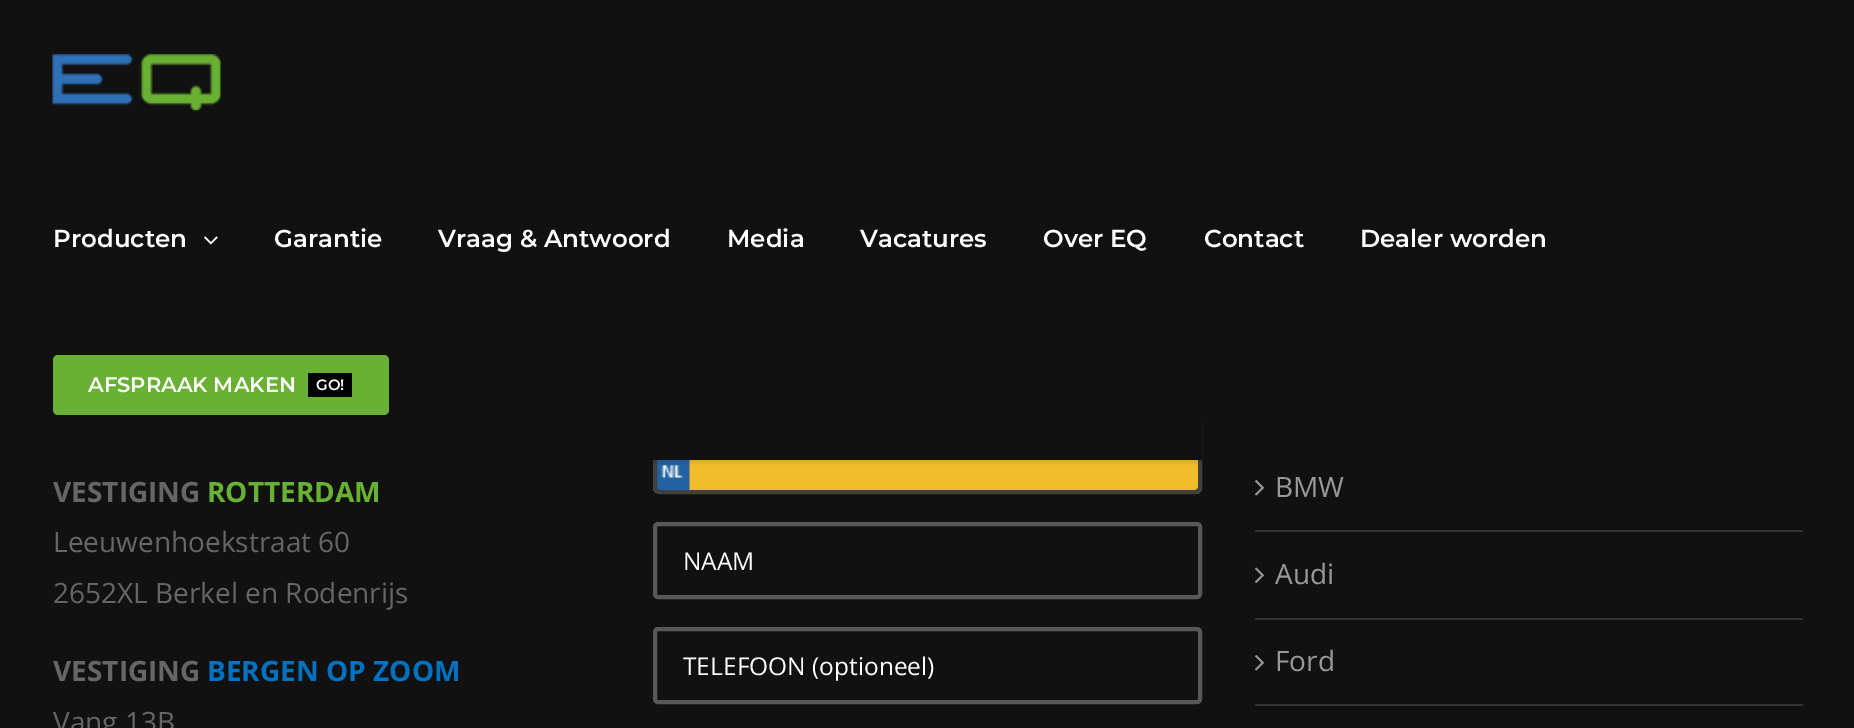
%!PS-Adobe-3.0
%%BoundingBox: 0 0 1854 728
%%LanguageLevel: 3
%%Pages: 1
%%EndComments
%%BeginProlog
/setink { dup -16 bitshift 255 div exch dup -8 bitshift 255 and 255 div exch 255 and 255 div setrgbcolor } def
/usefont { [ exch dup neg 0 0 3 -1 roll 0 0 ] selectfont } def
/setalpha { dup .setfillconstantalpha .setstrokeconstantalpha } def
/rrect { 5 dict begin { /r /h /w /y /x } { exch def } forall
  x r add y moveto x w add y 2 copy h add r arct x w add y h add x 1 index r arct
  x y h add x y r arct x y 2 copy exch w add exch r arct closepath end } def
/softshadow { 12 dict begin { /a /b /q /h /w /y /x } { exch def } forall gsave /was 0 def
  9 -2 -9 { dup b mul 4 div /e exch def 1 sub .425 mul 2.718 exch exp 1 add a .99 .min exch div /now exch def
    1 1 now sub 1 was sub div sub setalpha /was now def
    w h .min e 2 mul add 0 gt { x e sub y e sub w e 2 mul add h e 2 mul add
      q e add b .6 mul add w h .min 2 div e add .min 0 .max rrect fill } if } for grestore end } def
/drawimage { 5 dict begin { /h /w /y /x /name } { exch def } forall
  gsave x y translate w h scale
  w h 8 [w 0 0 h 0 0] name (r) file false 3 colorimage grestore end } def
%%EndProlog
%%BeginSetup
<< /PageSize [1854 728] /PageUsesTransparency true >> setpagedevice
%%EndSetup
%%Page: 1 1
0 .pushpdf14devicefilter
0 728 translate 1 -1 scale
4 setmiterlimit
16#111111 setink
0 0 1854 728 rectfill
16#F1BD2A setink
653 417 549 77 7 rrect fill
(img3.raw) 656 460 34 34 drawimage
16#404040 setink
4 setlinewidth
655 419 545 73 5 rrect stroke
16#000000 setink
0 2 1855 460 0 2.5 0.12 softshadow
16#111111 setink
653 417 549 43 rectfill
(img1.raw) 52 54 169 57 drawimage
/Montserrat-SemiBold 24.5 usefont
16#FFFFFF setink
53 247 moveto (Producten) show
(img2.raw) 204 236 14 9 drawimage
[
    [(Garantie) 274 247]
    [(Vraag & Antwoord) 438 247]
    [(Media) 727 247]
    [(Vacatures) 860 247]
    [(Over EQ) 1043 247]
    [(Contact) 1204 247]
    [(Dealer worden) 1360 247]
] { aload pop moveto show } forall
16#69B134 setink
53 355 336 60 5 rrect fill
/Montserrat-SemiBold 21 usefont
16#FFFFFF setink
88 392 moveto (AFSPRAAK MAKEN) show
16#000000 setink
308 373 44 24 rectfill
/Montserrat-SemiBold 15 usefont
16#FFFFFF setink
316 390 moveto (GO!) show
/OpenSans-Bold 28 usefont
16#666666 setink
53 502 moveto (VESTIGING) show
16#69B134 setink
207 502 moveto (ROTTERDAM) show
/OpenSans-Regular 28 usefont
16#666666 setink
53 552 moveto (Leeuwenhoekstraat 60) show
53 603 moveto (2652XL Berkel en Rodenrijs) show
/OpenSans-Bold 28 usefont
53 681 moveto (VESTIGING) show
16#0271C0 setink
207 681 moveto (BERGEN OP ZOOM) show
/OpenSans-Regular 28 usefont
16#666666 setink
53 732 moveto (Vang 13B) show
16#585858 setink
655 524 545 73 3 rrect stroke
/OpenSans-Regular 24.5 usefont
16#FFFFFF setink
683 570 moveto (NAAM) show
16#585858 setink
655 629 545 73 3 rrect stroke
16#FFFFFF setink
683 675 moveto (TELEFOON \(optioneel\)) show
16#333333 setink
1255 530 548 2 rectfill
(img4.raw) 1255 480 9 16 drawimage
/OpenSans-Regular 28 usefont
16#999999 setink
1275 497 moveto (BMW) show
16#333333 setink
1255 618 548 2 rectfill
(img5.raw) 1255 567 9 16 drawimage
16#999999 setink
1275 584 moveto (Audi) show
16#333333 setink
1255 704 548 2 rectfill
(img4.raw) 1255 655 9 16 drawimage
16#999999 setink
1275 671 moveto (Ford) show
.poppdf14devicefilter showpage
%%EOF
